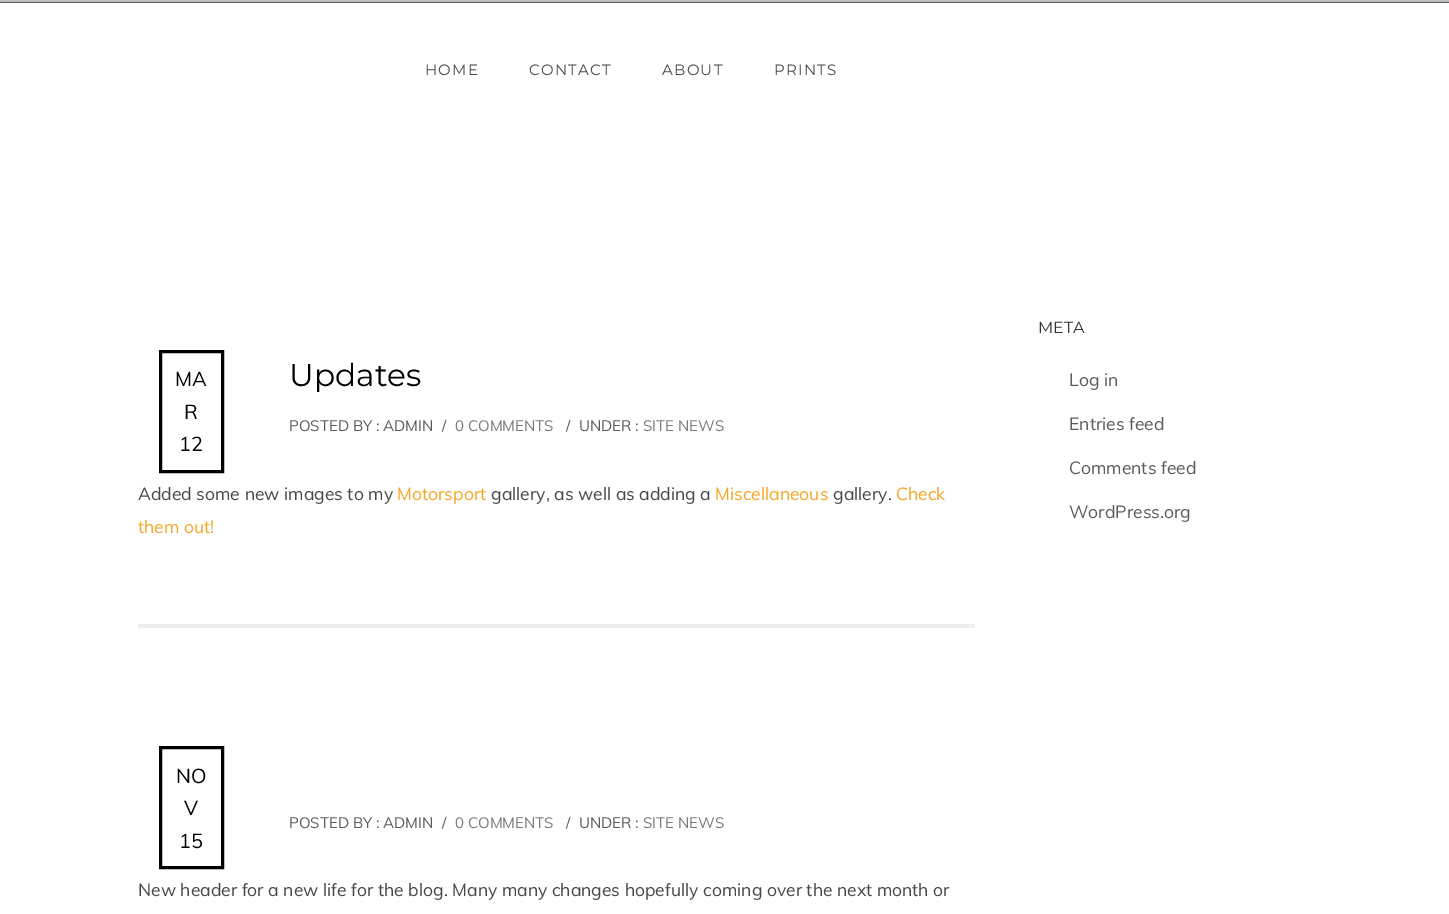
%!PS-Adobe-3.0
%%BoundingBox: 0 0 1449 914
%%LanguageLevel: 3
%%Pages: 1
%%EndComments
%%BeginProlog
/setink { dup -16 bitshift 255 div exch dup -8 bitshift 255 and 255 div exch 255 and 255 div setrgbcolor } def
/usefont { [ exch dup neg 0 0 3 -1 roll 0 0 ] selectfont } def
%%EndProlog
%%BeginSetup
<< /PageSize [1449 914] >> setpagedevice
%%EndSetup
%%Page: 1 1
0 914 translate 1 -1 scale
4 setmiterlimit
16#FFFFFF setink
0 0 1449 914 rectfill
16#5C5C5C setink
0 2 1449 1 rectfill
16#BBBBBB setink
0 0 1449 2 rectfill
/Montserrat-Regular 15 usefont
16#474747 setink
425 75 moveto 1.25 0 (HOME) ashow
529 75 moveto 1.25 0 (CONTACT) ashow
662 75 moveto 1.25 0 (ABOUT) ashow
774 75 moveto 1.25 0 (PRINTS) ashow
16#000000 setink
3 setlinewidth
160.5 351.5 62 120 rectstroke
/Muli-Regular 20 usefont
[
    [(MA) 175 386]
    [(R) 184 419]
    [(12) 179 451]
] { aload pop moveto show } forall
/Montserrat-Regular 31.25 usefont
289 386 moveto (Updates) show
/Muli-Regular 15 usefont
16#5B5B5B setink
289 431 moveto (POSTED BY : ADMIN) show
442 431 moveto (/) show
16#7A7A7A setink
455 431 moveto (0 COMMENTS) show
16#5B5B5B setink
566 431 moveto (/) show
579 431 moveto (UNDER :) show
16#7A7A7A setink
643 431 moveto (SITE NEWS) show
/Muli-Regular 17.5 usefont
16#474747 setink
138 500 moveto (Added some new images to my) show
16#F5A623 setink
397 500 moveto (Motorsport) show
16#474747 setink
491 500 moveto (gallery, as well as adding a) show
16#F5A623 setink
715 500 moveto (Miscellaneous) show
16#474747 setink
833 500 moveto (gallery.) show
16#F5A623 setink
896 500 moveto (Check) show
138 533 moveto (them out!) show
16#EEEEEE setink
138 624 837 4 rectfill
16#000000 setink
160.5 747.5 62 120 rectstroke
/Muli-Regular 20 usefont
[
    [(NO) 176 783]
    [(V) 184 815]
    [(15) 179 848]
] { aload pop moveto show } forall
/Muli-Regular 15 usefont
16#5B5B5B setink
289 828 moveto (POSTED BY : ADMIN) show
442 828 moveto (/) show
16#7A7A7A setink
455 828 moveto (0 COMMENTS) show
16#5B5B5B setink
566 828 moveto (/) show
579 828 moveto (UNDER :) show
16#7A7A7A setink
643 828 moveto (SITE NEWS) show
/Muli-Regular 17.5 usefont
16#474747 setink
138 896 moveto (New header for a new life for the blog. Many many changes hopefully coming over the next month or) show
/Montserrat-Regular 16 usefont
16#333333 setink
1038 333 moveto (META) show
/Muli-Regular 17.5 usefont
16#5B5B5B setink
[
    [(Log in) 1069 386]
    [(Entries feed) 1069 430]
    [(Comments feed) 1069 474]
    [(WordPress.org) 1069 518]
] { aload pop moveto show } forall
showpage
%%EOF
